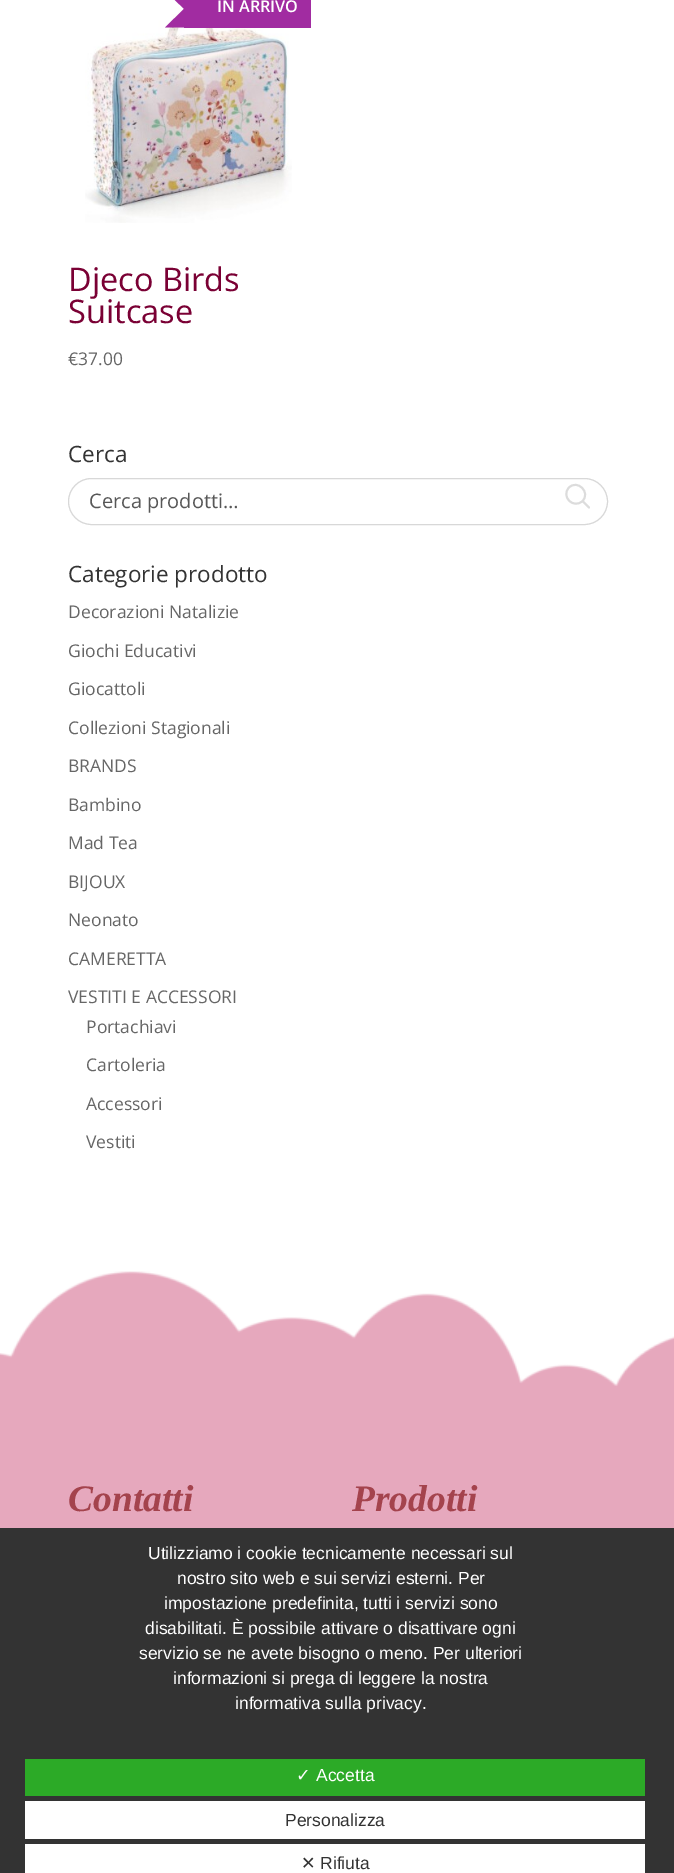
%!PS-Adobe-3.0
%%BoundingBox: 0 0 674 1873
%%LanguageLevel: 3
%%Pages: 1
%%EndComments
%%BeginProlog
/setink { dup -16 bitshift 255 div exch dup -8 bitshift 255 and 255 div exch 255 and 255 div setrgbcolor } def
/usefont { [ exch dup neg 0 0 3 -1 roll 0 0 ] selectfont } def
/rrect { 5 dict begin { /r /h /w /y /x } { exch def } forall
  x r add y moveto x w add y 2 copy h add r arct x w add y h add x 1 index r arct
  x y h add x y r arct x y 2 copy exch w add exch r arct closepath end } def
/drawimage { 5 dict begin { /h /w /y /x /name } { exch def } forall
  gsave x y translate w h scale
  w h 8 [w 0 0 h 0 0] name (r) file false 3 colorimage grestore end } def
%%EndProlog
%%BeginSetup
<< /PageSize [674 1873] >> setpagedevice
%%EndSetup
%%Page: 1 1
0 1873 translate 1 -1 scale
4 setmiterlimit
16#FFFFFF setink
0 0 674 1873 rectfill
(img1.raw) 85 7 207 216 drawimage
16#A12CA1 setink
203 0 108 28 rectfill
165 -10 moveto 202.5 -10 lineto 184 9 lineto closepath fill
184 0 19 28 rectfill
202.5 27.5 moveto 165 27.5 lineto 184 9 lineto closepath fill
/OpenSans-SemiBold 16.25 usefont
16#FFFFFF setink
217 12 moveto (IN ARRIVO) show
/OpenSans-Regular 32.5 usefont
16#7A0034 setink
68 291 moveto (Djeco Birds) show
68 323 moveto (Suitcase) show
/OpenSans-Regular 17.5 usefont
16#666666 setink
68 365 moveto (€37.00) show
/OpenSans-Regular 22.5 usefont
16#333333 setink
68 462 moveto (Cerca) show
16#D8D8D8 setink
68.5 478.5 539 46 23 rrect stroke
/OpenSans-Regular 20 usefont
16#575757 setink
89 508 moveto (Cerca prodotti…) show
16#DCDCDC setink
1.9 setlinewidth
1 setlinecap
1 setlinejoin
589 507.5 moveto 582.5 501 lineto 582.5 501 moveto 591 492.5 577.5 479 569 487.5 curveto 560.5 496.5 573.5 509.5 582.5 501 curveto closepath stroke
/OpenSans-Regular 22.5 usefont
16#333333 setink
68 582 moveto (Categorie prodotto) show
/OpenSans-Regular 17.5 usefont
16#666666 setink
[
    [(Decorazioni Natalizie) 68 618]
    [(Giochi Educativi) 68 657]
    [(Giocattoli) 68 695]
    [(Collezioni Stagionali) 68 734]
    [(BRANDS) 68 772]
    [(Bambino) 68 811]
    [(Mad Tea) 68 849]
    [(BIJOUX) 68 888]
    [(Neonato) 68 926]
    [(CAMERETTA) 68 965]
    [(VESTITI E ACCESSORI) 68 1003]
    [(Portachiavi) 86 1033]
    [(Cartoleria) 86 1071]
    [(Accessori) 86 1110]
    [(Vestiti) 86 1148]
] { aload pop moveto show } forall
(img2.raw) 0 1271 674 257 drawimage
/LiberationSerif-BoldItalic 37.5 usefont
16#A4434D setink
68 1511 moveto (Contatti) show
352 1511 moveto (Prodotti) show
16#333333 setink
0 1528 674 345 rectfill
/LiberationSans-Regular 17.5 usefont
16#FFFFFF setink
[
    [(Utilizziamo i cookie tecnicamente necessari sul) 148 1559]
    [(nostro sito web e sui servizi esterni. Per) 177 1584]
    [(impostazione predefinita, tutti i servizi sono) 164 1609]
    [(disabilitati. È possibile attivare o disattivare ogni) 145 1634]
    [(servizio se ne avete bisogno o meno. Per ulteriori) 139 1659]
    [(informazioni si prega di leggere la nostra) 173 1684]
    [(informativa sulla privacy.) 235 1709]
] { aload pop moveto show } forall
16#2CAA27 setink
25 1759 620 37 rectfill
/DejaVuSans-Regular 17.5 usefont
16#FFFFFF setink
296 1781 moveto (✓) show
/LiberationSans-Regular 17.5 usefont
316 1781 moveto (Accetta) show
25 1801 620 38 rectfill
16#333333 setink
285 1826 moveto (Personalizza) show
16#FFFFFF setink
25 1844 620 29 rectfill
/DejaVuSans-Regular 17.5 usefont
16#333333 setink
301 1869 moveto (✕) show
/LiberationSans-Regular 17.5 usefont
320 1869 moveto (Rifiuta) show
showpage
%%EOF
